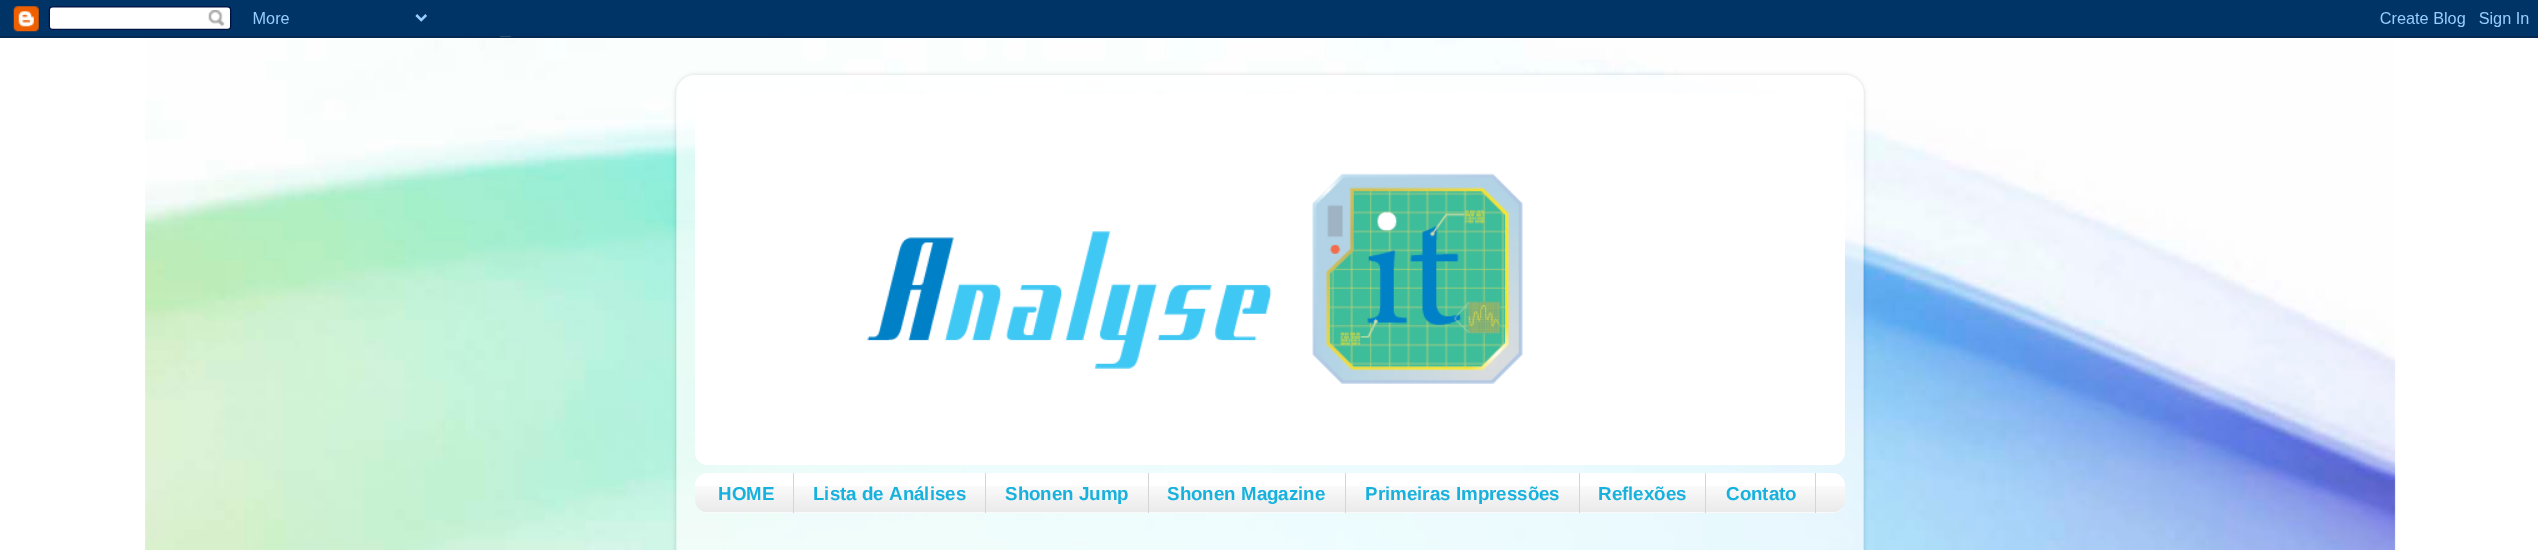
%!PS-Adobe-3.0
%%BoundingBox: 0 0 2538 550
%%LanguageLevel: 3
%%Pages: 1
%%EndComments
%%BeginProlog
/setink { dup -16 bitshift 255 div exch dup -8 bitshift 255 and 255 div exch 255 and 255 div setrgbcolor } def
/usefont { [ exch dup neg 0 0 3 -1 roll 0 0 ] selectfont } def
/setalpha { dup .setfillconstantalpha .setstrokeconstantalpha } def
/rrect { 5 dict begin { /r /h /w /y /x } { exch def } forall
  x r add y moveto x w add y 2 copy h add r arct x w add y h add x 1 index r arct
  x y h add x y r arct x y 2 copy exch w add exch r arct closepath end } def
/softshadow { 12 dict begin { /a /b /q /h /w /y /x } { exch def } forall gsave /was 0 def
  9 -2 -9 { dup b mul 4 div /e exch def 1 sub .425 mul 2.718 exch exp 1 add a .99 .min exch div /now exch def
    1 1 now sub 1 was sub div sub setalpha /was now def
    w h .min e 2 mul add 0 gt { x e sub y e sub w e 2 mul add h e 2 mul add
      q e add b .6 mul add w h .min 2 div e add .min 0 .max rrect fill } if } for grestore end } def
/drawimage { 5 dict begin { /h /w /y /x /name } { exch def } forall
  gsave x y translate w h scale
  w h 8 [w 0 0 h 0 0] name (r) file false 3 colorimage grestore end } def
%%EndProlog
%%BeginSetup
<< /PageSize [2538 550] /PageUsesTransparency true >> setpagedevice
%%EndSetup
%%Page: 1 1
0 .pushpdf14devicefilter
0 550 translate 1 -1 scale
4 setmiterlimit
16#FFFFFF setink
0 0 2538 550 rectfill
(img1.raw) 145 36 2251 514 drawimage
(img2.raw) 0 0 2538 38 drawimage
gsave
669 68 moveto 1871 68 lineto 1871 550 lineto 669 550 lineto closepath 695 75 moveto 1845 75 lineto 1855.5 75 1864 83.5 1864 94 curveto 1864 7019 lineto 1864 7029.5 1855.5 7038 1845 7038 curveto 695 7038 lineto 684.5 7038 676 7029.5 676 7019 curveto 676 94 lineto 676 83.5 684.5 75 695 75 curveto closepath eoclip newpath
16#000000 setink
676 75 1188 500 19 2 0.15 softshadow
grestore
(img3.raw) 676 75 1188 475 drawimage
695 94 1150 371 13 rrect fill
(img4.raw) 867 173 656 211 drawimage
695 473 1150 40 13 rrect fill
(img5.raw) 695 486 1150 27 drawimage
16#D5D5D5 setink
793 473 1 40 rectfill
/LiberationSans-Bold 18.75 usefont
16#17B1DD setink
718 500 moveto (HOME) show
16#D5D5D5 setink
985 473 1 40 rectfill
16#17B1DD setink
813 500 moveto (Lista de Análises) show
16#D5D5D5 setink
1148 473 1 40 rectfill
16#17B1DD setink
1005 500 moveto (Shonen Jump) show
16#D5D5D5 setink
1345 473 1 40 rectfill
16#17B1DD setink
1167 500 moveto (Shonen Magazine) show
16#D5D5D5 setink
1579 473 1 40 rectfill
16#17B1DD setink
1365 500 moveto (Primeiras Impressões) show
16#D5D5D5 setink
1705 473 1 40 rectfill
16#17B1DD setink
1598 500 moveto (Reflexões) show
16#D5D5D5 setink
1815 473 1 40 rectfill
16#17B1DD setink
1726 500 moveto (Contato) show
.poppdf14devicefilter showpage
%%EOF
